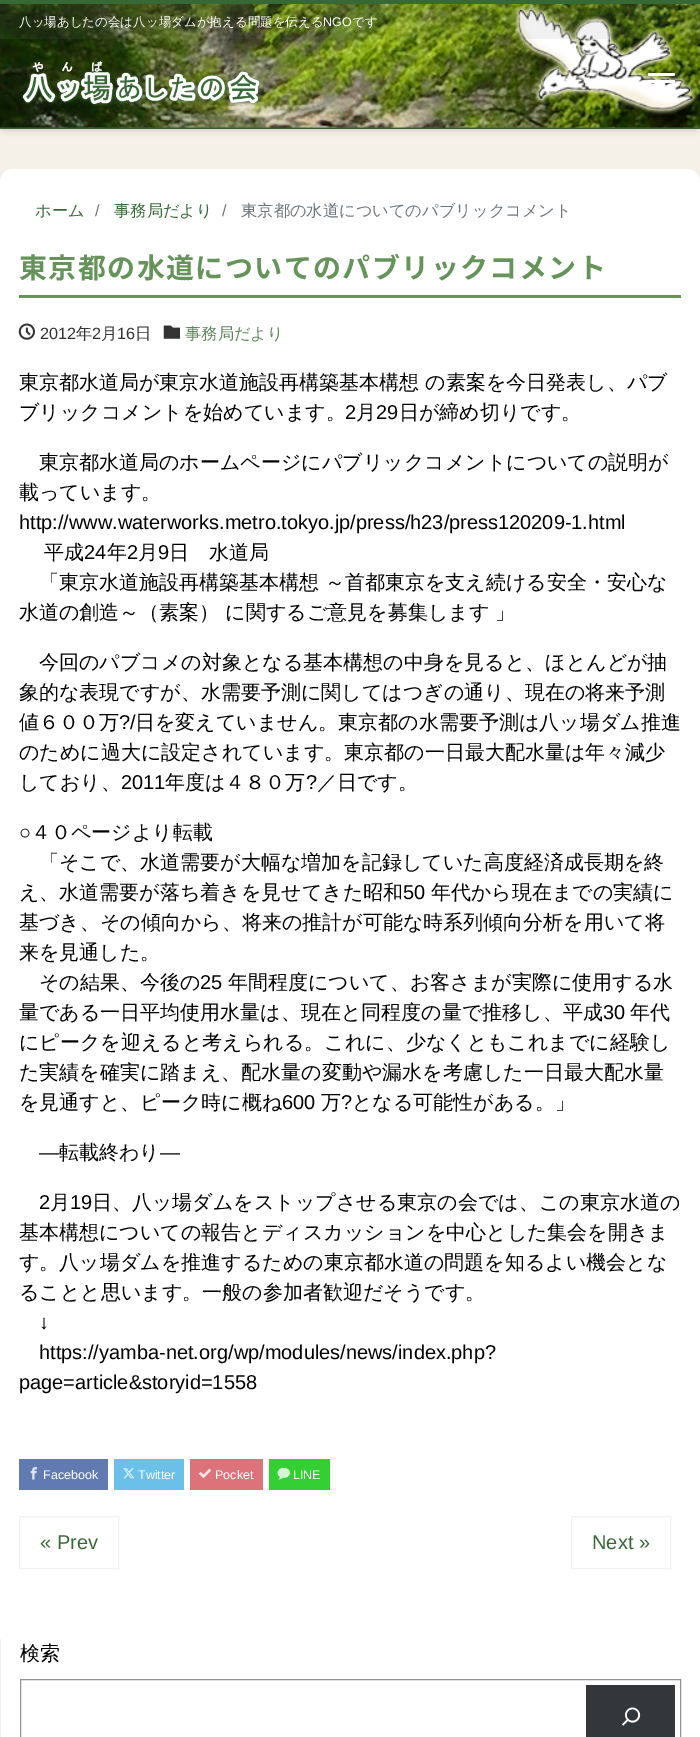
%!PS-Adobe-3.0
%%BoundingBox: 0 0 700 1737
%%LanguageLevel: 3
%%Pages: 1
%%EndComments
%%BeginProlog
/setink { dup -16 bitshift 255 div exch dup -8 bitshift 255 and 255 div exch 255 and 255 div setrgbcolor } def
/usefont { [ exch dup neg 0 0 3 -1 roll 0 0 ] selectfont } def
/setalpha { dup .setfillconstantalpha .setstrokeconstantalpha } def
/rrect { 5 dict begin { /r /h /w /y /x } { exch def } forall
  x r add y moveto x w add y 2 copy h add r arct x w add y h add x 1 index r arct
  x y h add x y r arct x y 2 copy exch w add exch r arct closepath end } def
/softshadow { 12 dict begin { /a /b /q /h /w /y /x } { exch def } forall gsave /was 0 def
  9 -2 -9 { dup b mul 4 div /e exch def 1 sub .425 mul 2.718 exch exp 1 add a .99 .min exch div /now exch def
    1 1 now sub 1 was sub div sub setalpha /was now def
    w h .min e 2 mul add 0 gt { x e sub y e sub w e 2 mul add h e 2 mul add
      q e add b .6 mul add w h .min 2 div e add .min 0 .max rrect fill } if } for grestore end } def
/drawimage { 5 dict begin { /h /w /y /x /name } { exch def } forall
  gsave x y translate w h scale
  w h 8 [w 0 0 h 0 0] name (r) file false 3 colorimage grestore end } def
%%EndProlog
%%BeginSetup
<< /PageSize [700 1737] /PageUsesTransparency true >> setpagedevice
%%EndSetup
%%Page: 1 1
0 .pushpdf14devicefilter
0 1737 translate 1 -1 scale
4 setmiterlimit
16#F5F1E8 setink
0 0 700 1737 rectfill
16#3D6A3D setink
0 128 700 1 rectfill
16#000000 setink
4 8 692 120 0 4 0.3 softshadow
16#376936 setink
0 127 700 1 rectfill
(img1.raw) 0 4 700 124 drawimage
0 0 700 4 rectfill
0.1 setalpha
16#777777 setink
0 4 700 35 rectfill
/WenQuanYiZenHei-Medium 12.5 usefont
1 setalpha
16#FFFFFF setink
19 26 moveto (八ッ場あしたの会は八ッ場ダムが抱える問題を伝える) show
/LiberationSans-Regular 12.5 usefont
323 26 moveto (NGO) show
/WenQuanYiZenHei-Medium 12.5 usefont
352 26 moveto (です) show
(img2.raw) 21 61 242 45 drawimage
648 73 27 3 1.5 rrect fill
648 80 27 3 1.5 rrect fill
648 88 27 3 1.5 rrect fill
0 169 700 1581 13 rrect fill
/WenQuanYiZenHei-Medium 16.25 usefont
16#376936 setink
35 216 moveto (ホーム) show
/LiberationSans-Regular 16.25 usefont
16#6C757D setink
95 216 moveto (/) show
/WenQuanYiZenHei-Medium 16.25 usefont
16#376936 setink
114 216 moveto (事務局だより) show
/LiberationSans-Regular 16.25 usefont
16#6C757D setink
222 216 moveto (/) show
/WenQuanYiZenHei-Medium 16.25 usefont
241 216 moveto (東京都の水道についてのパブリックコメント) show
16#649459 setink
19 295 662 3 rectfill
/NotoSansJP-Bold 28 usefont
19 278 moveto 1.4 0 (東京都の水道についてのパブリックコメント) ashow
(img3.raw) 18 323 17 17 drawimage
/LiberationSans-Regular 16.25 usefont
16#333333 setink
40 339 moveto (2012) show
/WenQuanYiZenHei-Medium 16.25 usefont
76 339 moveto (年) show
/LiberationSans-Regular 16.25 usefont
92 339 moveto (2) show
/WenQuanYiZenHei-Medium 16.25 usefont
101 339 moveto (月) show
/LiberationSans-Regular 16.25 usefont
117 339 moveto (16) show
/WenQuanYiZenHei-Medium 16.25 usefont
135 339 moveto (日) show
(img4.raw) 163 325 17 14 drawimage
16#5F875E setink
185 339 moveto (事務局だより) show
/WenQuanYiZenHei-Medium 20 usefont
16#000000 setink
19 389 moveto (東京都水道局が東京水道施設再構築基本構想 の素案を今日発表し、パブ) show
19 419 moveto (ブリックコメントを始めています。) show
/LiberationSans-Regular 20 usefont
345 419 moveto (2) show
/WenQuanYiZenHei-Medium 20 usefont
356 419 moveto (月) show
/LiberationSans-Regular 20 usefont
376 419 moveto (29) show
/WenQuanYiZenHei-Medium 20 usefont
[
    [(日が締め切りです。) 399 419]
    [(東京都水道局のホームページにパブリックコメントについての説明が) 39 469]
    [(載っています。) 19 499]
] { aload pop moveto show } forall
/LiberationSans-Regular 20 usefont
19 529 moveto (http://www.waterworks.metro.tokyo.jp/press/h23/press120209-1.html) show
/WenQuanYiZenHei-Medium 20 usefont
44 559 moveto (平成) show
/LiberationSans-Regular 20 usefont
84 559 moveto (24) show
/WenQuanYiZenHei-Medium 20 usefont
107 559 moveto (年) show
/LiberationSans-Regular 20 usefont
127 559 moveto (2) show
/WenQuanYiZenHei-Medium 20 usefont
138 559 moveto (月) show
/LiberationSans-Regular 20 usefont
158 559 moveto (9) show
/WenQuanYiZenHei-Medium 20 usefont
[
    [(日　水道局) 169 559]
    [(「東京水道施設再構築基本構想 ～首都東京を支え続ける安全・安心な) 39 589]
    [(水道の創造～（素案） に関するご意見を募集します 」) 19 619]
    [(今回のパブコメの対象となる基本構想の中身を見ると、ほとんどが抽) 39 669]
    [(象的な表現ですが、水需要予測に関してはつぎの通り、現在の将来予測) 19 699]
    [(値６００万) 19 729]
] { aload pop moveto show } forall
/LiberationSans-Regular 20 usefont
119 729 moveto (?/) show
/WenQuanYiZenHei-Medium 20 usefont
[
    [(日を変えていません。東京都の水需要予測は八ッ場ダム推進) 135 729]
    [(のために過大に設定されています。東京都の一日最大配水量は年々減少) 19 759]
    [(しており、) 19 789]
] { aload pop moveto show } forall
/LiberationSans-Regular 20 usefont
121 789 moveto (2011) show
/WenQuanYiZenHei-Medium 20 usefont
165 789 moveto (年度は４８０万) show
/LiberationSans-Regular 20 usefont
306 789 moveto (?) show
/WenQuanYiZenHei-Medium 20 usefont
317 789 moveto (／日です。) show
/LiberationSans-Regular 20 usefont
19 839 moveto (○) show
/WenQuanYiZenHei-Medium 20 usefont
[
    [(４０ページより転載) 31 839]
    [(「そこで、水道需要が大幅な増加を記録していた高度経済成長期を終) 39 869]
    [(え、水道需要が落ち着きを見せてきた昭和) 19 899]
] { aload pop moveto show } forall
/LiberationSans-Regular 20 usefont
403 899 moveto (50) show
/WenQuanYiZenHei-Medium 20 usefont
[
    [(年代から現在までの実績に) 431 899]
    [(基づき、その傾向から、将来の推計が可能な時系列傾向分析を用いて将) 19 929]
    [(来を見通した。) 19 959]
    [(その結果、今後の) 39 989]
] { aload pop moveto show } forall
/LiberationSans-Regular 20 usefont
200 989 moveto (25) show
/WenQuanYiZenHei-Medium 20 usefont
228 989 moveto (年間程度について、お客さまが実際に使用する水) show
19 1019 moveto (量である一日平均使用水量は、現在と同程度の量で推移し、平成) show
/LiberationSans-Regular 20 usefont
603 1019 moveto (30) show
/WenQuanYiZenHei-Medium 20 usefont
[
    [(年代) 630 1019]
    [(にピークを迎えると考えられる。これに、少なくともこれまでに経験し) 19 1049]
    [(た実績を確実に踏まえ、配水量の変動や漏水を考慮した一日最大配水量) 19 1079]
    [(を見通すと、ピーク時に概ね) 19 1109]
] { aload pop moveto show } forall
/LiberationSans-Regular 20 usefont
282 1109 moveto (600) show
/WenQuanYiZenHei-Medium 20 usefont
321 1109 moveto (万) show
/LiberationSans-Regular 20 usefont
341 1109 moveto (?) show
/WenQuanYiZenHei-Medium 20 usefont
352 1109 moveto (となる可能性がある。」) show
/LiberationSans-Regular 20 usefont
39 1159 moveto (—) show
/WenQuanYiZenHei-Medium 20 usefont
59 1159 moveto (転載終わり) show
/LiberationSans-Regular 20 usefont
160 1159 moveto (—) show
39 1209 moveto (2) show
/WenQuanYiZenHei-Medium 20 usefont
50 1209 moveto (月) show
/LiberationSans-Regular 20 usefont
70 1209 moveto (19) show
/WenQuanYiZenHei-Medium 20 usefont
[
    [(日、八ッ場ダムをストップさせる東京の会では、この東京水道の) 92 1209]
    [(基本構想についての報告とディスカッションを中心とした集会を開きま) 19 1239]
    [(す。八ッ場ダムを推進するための東京都水道の問題を知るよい機会とな) 19 1269]
    [(ることと思います。一般の参加者歓迎だそうです。) 19 1299]
] { aload pop moveto show } forall
/LiberationSans-Regular 20 usefont
[
    [(↓) 39 1329]
    [(https://yamba-net.org/wp/modules/news/index.php?) 39 1359]
    [(page=article&storyid=1558) 19 1389]
] { aload pop moveto show } forall
16#617AB2 setink
19 1459 89 31 rectfill
(img5.raw) 30 1467 7 13 drawimage
/LiberationSans-Regular 12.5 usefont
16#FFFFFF setink
43 1479 moveto (Facebook) show
16#6AC0E9 setink
114 1459 70 31 rectfill
(img6.raw) 123 1468 12 11 drawimage
16#FFFFFF setink
138 1479 moveto (Twitter) show
16#DC737B setink
190 1459 73 31 rectfill
(img7.raw) 198 1468 14 11 drawimage
16#FFFFFF setink
215 1479 moveto (Pocket) show
16#33CF33 setink
269 1459 61 31 rectfill
(img8.raw) 277 1467 13 13 drawimage
16#FFFFFF setink
293 1479 moveto (LINE) show
16#F1F1F1 setink
19.5 1516.5 99 52 rectstroke
/LiberationSans-Regular 20 usefont
16#376936 setink
40 1549 moveto (« Prev) show
16#F1F1F1 setink
571.5 1516.5 99 52 rectstroke
16#376936 setink
592 1549 moveto (Next ») show
16#F5F1E8 setink
0 1639 1 98 rectfill
/WenQuanYiZenHei-Medium 20 usefont
16#000000 setink
20 1660 moveto (検索) show
16#949494 setink
20.5 1679.5 660 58 rectstroke
16#32373C setink
586 1685 89 52 rectfill
(img9.raw) 622 1707 19 19 drawimage
.poppdf14devicefilter showpage
%%EOF
